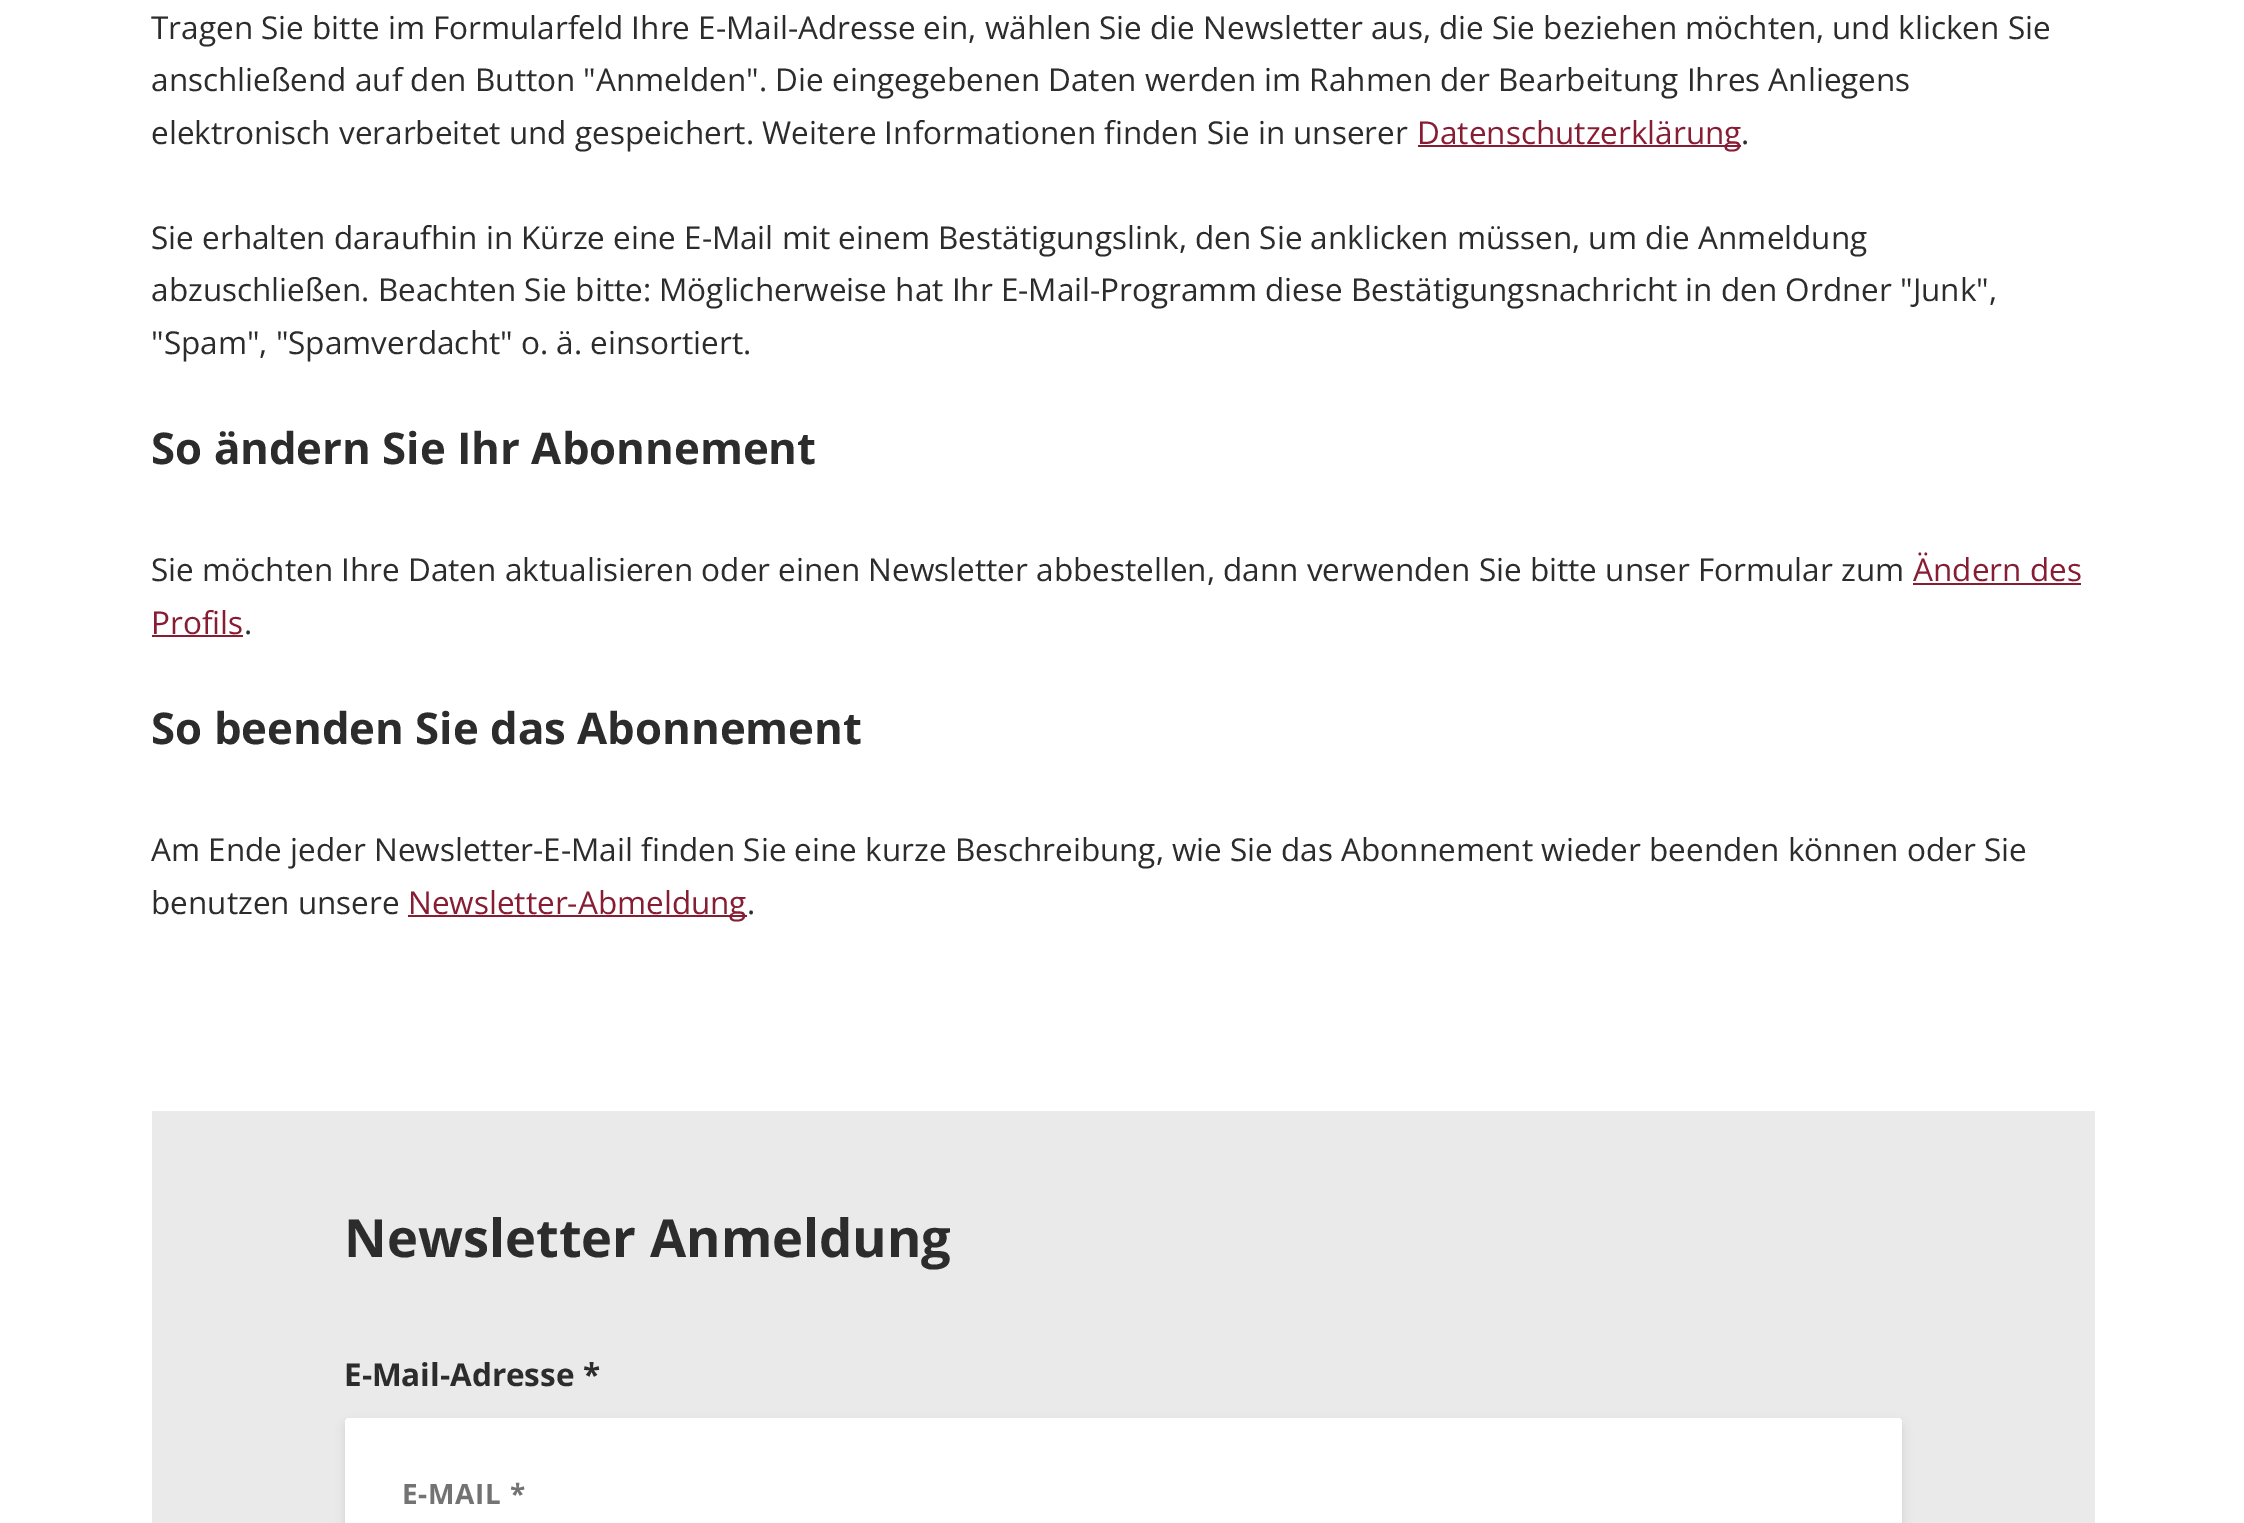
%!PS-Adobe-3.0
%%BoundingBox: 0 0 2244 1523
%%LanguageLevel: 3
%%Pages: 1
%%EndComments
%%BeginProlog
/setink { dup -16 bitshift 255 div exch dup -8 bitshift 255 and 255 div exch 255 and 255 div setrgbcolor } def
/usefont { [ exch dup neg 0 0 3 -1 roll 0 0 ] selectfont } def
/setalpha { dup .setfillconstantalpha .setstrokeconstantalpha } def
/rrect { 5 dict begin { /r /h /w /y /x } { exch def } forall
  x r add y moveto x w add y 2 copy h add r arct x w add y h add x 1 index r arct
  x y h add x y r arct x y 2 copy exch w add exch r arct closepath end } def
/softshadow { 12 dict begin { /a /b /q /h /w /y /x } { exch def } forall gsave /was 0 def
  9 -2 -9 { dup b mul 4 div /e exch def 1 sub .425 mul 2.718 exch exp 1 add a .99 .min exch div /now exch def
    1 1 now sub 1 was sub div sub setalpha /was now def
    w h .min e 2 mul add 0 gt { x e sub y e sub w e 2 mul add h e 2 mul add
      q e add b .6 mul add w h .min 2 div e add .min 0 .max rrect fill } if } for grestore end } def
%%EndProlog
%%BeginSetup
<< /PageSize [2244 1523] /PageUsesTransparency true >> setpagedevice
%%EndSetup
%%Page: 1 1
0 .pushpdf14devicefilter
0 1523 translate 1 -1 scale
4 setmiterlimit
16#FFFFFF setink
0 0 2244 1523 rectfill
/OpenSans-Regular 31.5 usefont
16#2C2C2C setink
[
    [(Tragen Sie bitte im Formularfeld Ihre E-Mail-Adresse ein, wählen Sie die Newsletter aus, die Sie beziehen möchten, und klicken Sie) 151 39]
    [(anschließend auf den Button "Anmelden". Die eingegebenen Daten werden im Rahmen der Bearbeitung Ihres Anliegens) 151 91]
    [(elektronisch verarbeitet und gespeichert. Weitere Informationen finden Sie in unserer) 151 144]
] { aload pop moveto show } forall
16#871D33 setink
1418 145 323 2 rectfill
1417 144 moveto (Datenschutzerklärung) show
16#2C2C2C setink
[
    [(.) 1741 144]
    [(Sie erhalten daraufhin in Kürze eine E-Mail mit einem Bestätigungslink, den Sie anklicken müssen, um die Anmeldung) 151 249]
    [(abzuschließen. Beachten Sie bitte: Möglicherweise hat Ihr E-Mail-Programm diese Bestätigungsnachricht in den Ordner "Junk",) 151 301]
    [("Spam", "Spamverdacht" o. ä. einsortiert.) 151 354]
] { aload pop moveto show } forall
/OpenSans-Bold 43.75 usefont
151 464 moveto (So ändern Sie Ihr Abonnement) show
/OpenSans-Regular 31.5 usefont
151 581 moveto (Sie möchten Ihre Daten aktualisieren oder einen Newsletter abbestellen, dann verwenden Sie bitte unser Formular zum) show
16#871D33 setink
1913 581 moveto (Ändern des) show
1913 583 168 2 rectfill
151 634 moveto (Profils) show
152 635 91 2 rectfill
16#2C2C2C setink
244 634 moveto (.) show
/OpenSans-Bold 43.75 usefont
151 744 moveto (So beenden Sie das Abonnement) show
/OpenSans-Regular 31.5 usefont
151 861 moveto (Am Ende jeder Newsletter-E-Mail finden Sie eine kurze Beschreibung, wie Sie das Abonnement wieder beenden können oder Sie) show
151 914 moveto (benutzen unsere) show
16#871D33 setink
408 915 339 2 rectfill
408 914 moveto (Newsletter-Abmeldung) show
16#2C2C2C setink
747 914 moveto (.) show
16#EAEAEA setink
152 1111 1943 412 rectfill
/OpenSans-Bold 52.5 usefont
16#2C2C2C setink
344 1257 moveto (Newsletter Anmeldung) show
/OpenSans-Bold 31.5 usefont
344 1386 moveto (E-Mail-Adresse *) show
16#000000 setink
345 1423 1557 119 4 5 0.11 softshadow
16#FFFFFF setink
345 1418 1557 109 4 rrect fill
/OpenSans-Bold 28 usefont
16#737373 setink
402 1504 moveto 0.75 0 (E-MAIL *) ashow
.poppdf14devicefilter showpage
%%EOF
